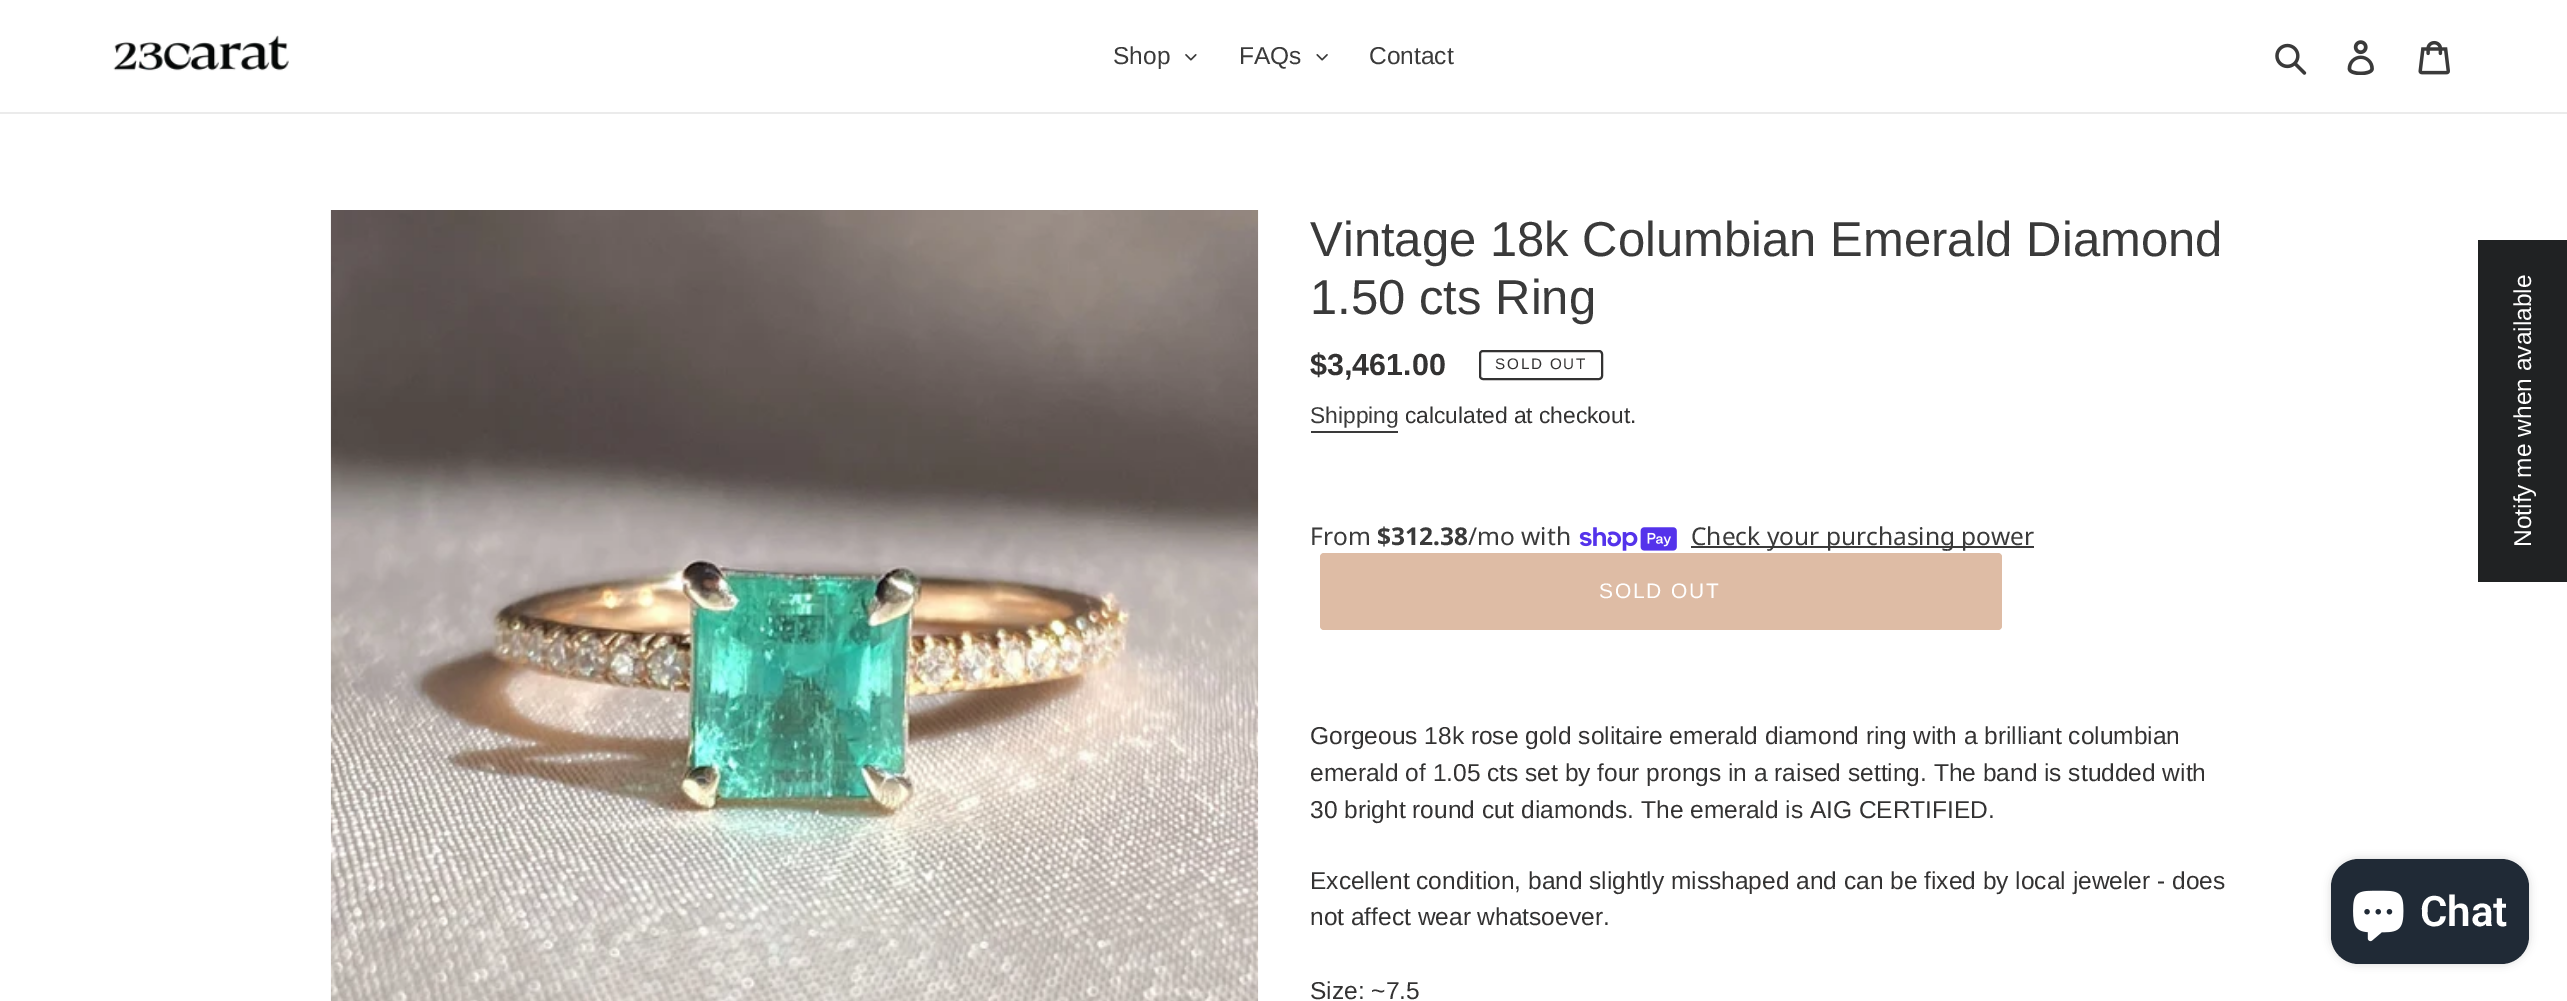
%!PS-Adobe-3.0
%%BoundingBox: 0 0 2567 1001
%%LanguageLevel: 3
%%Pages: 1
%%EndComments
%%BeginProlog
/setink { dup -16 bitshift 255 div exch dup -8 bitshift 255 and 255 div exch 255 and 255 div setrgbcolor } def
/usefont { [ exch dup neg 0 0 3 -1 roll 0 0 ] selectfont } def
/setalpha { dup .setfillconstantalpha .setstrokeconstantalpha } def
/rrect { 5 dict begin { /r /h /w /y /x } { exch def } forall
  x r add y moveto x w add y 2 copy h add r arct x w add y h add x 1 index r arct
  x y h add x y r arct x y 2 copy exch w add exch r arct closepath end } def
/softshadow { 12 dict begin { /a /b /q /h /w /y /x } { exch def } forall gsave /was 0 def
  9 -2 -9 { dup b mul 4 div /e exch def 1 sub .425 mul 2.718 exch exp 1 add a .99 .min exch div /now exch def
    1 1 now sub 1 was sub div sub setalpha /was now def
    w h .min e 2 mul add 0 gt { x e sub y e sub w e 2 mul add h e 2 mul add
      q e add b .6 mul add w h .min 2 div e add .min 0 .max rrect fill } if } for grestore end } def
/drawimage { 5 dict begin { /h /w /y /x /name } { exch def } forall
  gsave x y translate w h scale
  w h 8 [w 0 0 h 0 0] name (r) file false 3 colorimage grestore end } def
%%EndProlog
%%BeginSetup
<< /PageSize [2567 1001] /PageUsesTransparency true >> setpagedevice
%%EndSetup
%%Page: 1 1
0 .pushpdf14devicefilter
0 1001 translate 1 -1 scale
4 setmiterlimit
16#FFFFFF setink
0 0 2567 1001 rectfill
16#EBEBEB setink
0 112 2567 2 rectfill
(img1.raw) 113 35 176 36 drawimage
/LiberationSans-Regular 24.5 usefont
16#3A3A3A setink
1113 64 moveto (Shop) show
(img2.raw) 1185 54 12 7 drawimage
1239 64 moveto (FAQs) show
(img3.raw) 1316 54 12 7 drawimage
1369 64 moveto (Contact) show
(img4.raw) 2275 43 32 32 drawimage
(img5.raw) 2347 40 27 35 drawimage
(img6.raw) 2418 40 32 35 drawimage
(img7.raw) 330 210 929 791 drawimage
/LiberationSans-Regular 49 usefont
1310 256 moveto (Vintage 18k Columbian Emerald Diamond) show
1310 314 moveto (1.50 cts Ring) show
/LiberationSans-Bold 30.5 usefont
16#333232 setink
1310 375 moveto ($3,461.00) show
2 setlinewidth
1480 351 122 28 3 rrect stroke
/LiberationSans-Regular 15.25 usefont
1495 369 moveto 1.75 0 (SOLD OUT) ashow
/LiberationSans-Regular 22.75 usefont
16#3A3A3A setink
1310 423 moveto (Shipping) show
1311 431 87 2 rectfill
16#333232 setink
1405 423 moveto (calculated at checkout.) show
/NotoSans-Regular 24.5 usefont
16#3A3A3A setink
1310 545 moveto (From) show
/NotoSans-Bold 24.5 usefont
1377 545 moveto ($312.38) show
/NotoSans-Regular 24.5 usefont
1468 545 moveto (/mo with) show
(img8.raw) 1579 527 98 24 drawimage
1691 546 343 2 rectfill
1691 545 moveto (Check your purchasing power) show
16#DEBCA5 setink
1320 553 682 77 4 rrect fill
/LiberationSans-Regular 21 usefont
16#FFFFFF setink
1599 598 moveto 1.75 0 (SOLD OUT) ashow
/LiberationSans-Regular 24.5 usefont
16#333232 setink
[
    [(Gorgeous 18k rose gold solitaire emerald diamond ring with a brilliant columbian) 1310 744]
    [(emerald of 1.05 cts set by four prongs in a raised setting. The band is studded with) 1310 781]
    [(30 bright round cut diamonds. The emerald is AIG CERTIFIED.) 1310 818]
    [(Excellent condition, band slightly misshaped and can be fixed by local jeweler - does) 1310 889]
    [(not affect wear whatsoever.) 1310 925]
    [(Size: ~7.5) 1310 999]
] { aload pop moveto show } forall
16#202223 setink
2478 240 89 342 rectfill
16#FFFFFF setink
gsave 2531 547 translate -90 rotate 0 0 moveto (Notify me when available) show grestore
16#000000 setink
2331 859 198 105 28 4.5 0.15 softshadow
16#202A36 setink
2331 859 198 105 28 rrect fill
(img9.raw) 2353 890 51 52 drawimage
/Roboto-SemiBold 42 usefont
16#FFFFFF setink
2420 926 moveto (Chat) show
.poppdf14devicefilter showpage
%%EOF
